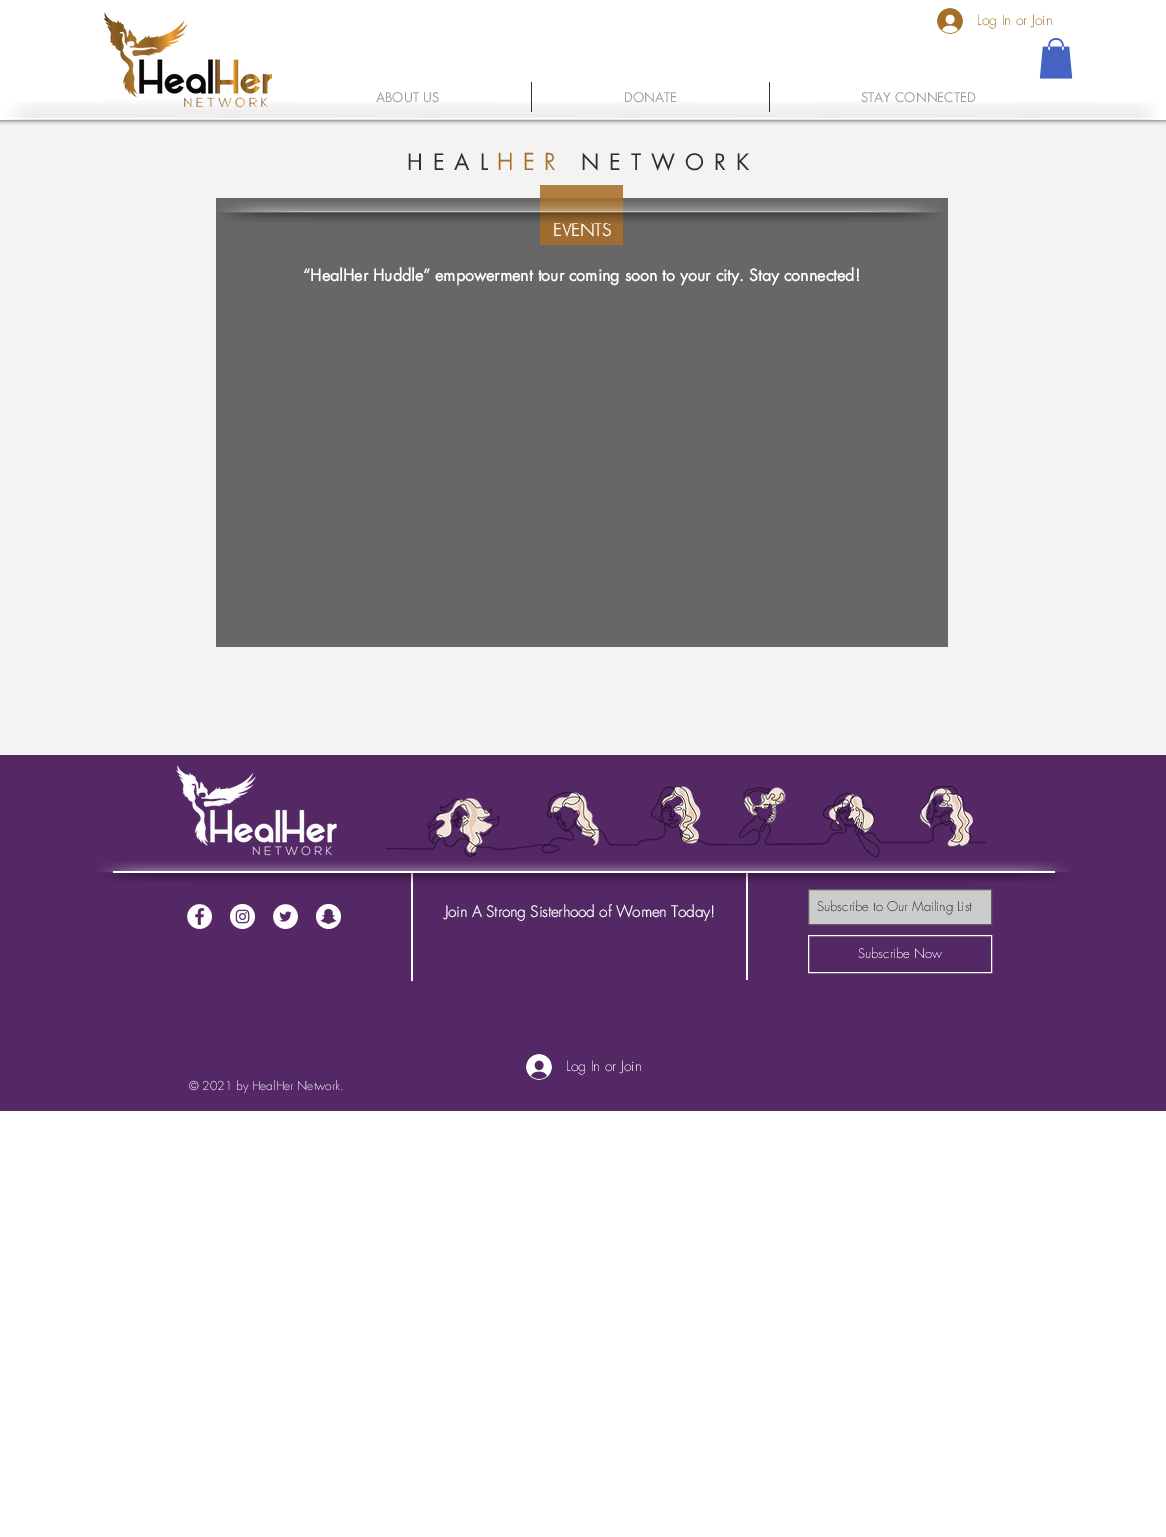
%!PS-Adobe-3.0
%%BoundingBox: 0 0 1166 1537
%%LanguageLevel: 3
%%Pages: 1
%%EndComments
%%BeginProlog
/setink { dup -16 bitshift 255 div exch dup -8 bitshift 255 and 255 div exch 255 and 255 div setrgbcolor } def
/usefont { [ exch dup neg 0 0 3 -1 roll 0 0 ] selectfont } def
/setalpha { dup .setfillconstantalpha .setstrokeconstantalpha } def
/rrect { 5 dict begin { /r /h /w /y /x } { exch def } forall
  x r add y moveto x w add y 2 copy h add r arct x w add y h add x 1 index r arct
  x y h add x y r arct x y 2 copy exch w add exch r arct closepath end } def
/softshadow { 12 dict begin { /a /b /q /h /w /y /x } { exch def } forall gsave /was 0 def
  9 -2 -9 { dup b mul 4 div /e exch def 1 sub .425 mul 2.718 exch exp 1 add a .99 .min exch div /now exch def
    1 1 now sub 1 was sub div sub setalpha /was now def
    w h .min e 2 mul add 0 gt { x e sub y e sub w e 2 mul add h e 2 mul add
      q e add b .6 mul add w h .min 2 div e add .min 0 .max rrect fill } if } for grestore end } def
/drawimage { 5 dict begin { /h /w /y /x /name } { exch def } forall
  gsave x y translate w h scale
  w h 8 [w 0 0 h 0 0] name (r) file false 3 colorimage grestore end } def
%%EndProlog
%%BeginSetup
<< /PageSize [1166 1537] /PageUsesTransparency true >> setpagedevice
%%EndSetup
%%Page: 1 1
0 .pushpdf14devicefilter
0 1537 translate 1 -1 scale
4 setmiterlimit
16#FFFFFF setink
0 0 1166 1537 rectfill
16#F3F3F3 setink
0 120 1166 635 rectfill
gsave
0 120 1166 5 rectclip
16#000000 setink
0 0 1166 120 0 2.5 0.7 softshadow
grestore
(img5.raw) 30 101 1106 19 drawimage
(img1.raw) 104 12 168 96 drawimage
(img2.raw) 937 8 26 26 drawimage
/futura-Light 14 usefont
16#A76E2A setink
977 25 moveto (Log In or Join) show
(img3.raw) 1039 38 34 41 drawimage
/futura-Regular 13 usefont
16#A0A09F setink
376 102 moveto (ABOUT US) show
16#2F2E2E setink
531 82 1 30 rectfill
16#A0A09F setink
624 102 moveto (DONATE) show
16#2F2E2E setink
769 82 1 30 rectfill
16#A0A09F setink
861 102 moveto (STAY CONNECTED) show
(img4.raw) 6 102 24 18 drawimage
(img6.raw) 1136 102 24 18 drawimage
16#B17F44 setink
540 185 83 13 rectfill
/futura-Regular 22 usefont
16#2F2E2E setink
407 170 moveto 10 0 (HEAL) ashow
/futura-Bold 22 usefont
16#A76E2A setink
497 170 moveto 10 0 (HER) ashow
/futura-Regular 22 usefont
16#2F2E2E setink
581 170 moveto 10 0 (NETWORK) ashow
16#686767 setink
216 198 732 449 rectfill
16#9F6D32 setink
540 198 83 47 rectfill
(img7.raw) 218 201 96 22 drawimage
/futura-Bold 17 usefont
16#FFFFFF setink
553 236 moveto (EVENTS) show
(img8.raw) 314 201 532 23 drawimage
(img9.raw) 846 201 96 22 drawimage
/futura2-Bold 16 usefont
303 281 moveto (“HealHer Huddle” empowerment tour coming soon to your city. Stay connected!) show
16#542765 setink
0 755 1166 356 rectfill
(img10.raw) 175 765 162 91 drawimage
(img11.raw) 386 786 600 71 drawimage
16#FFFFFF setink
113 871 942 2 rectfill
(img12.raw) 96 861 97 22 drawimage
411 871 2 110 rectfill
746 871 2 109 rectfill
(img13.raw) 193 861 780 23 drawimage
(img14.raw) 973 861 97 22 drawimage
(img15.raw) 187 904 25 25 drawimage
(img16.raw) 230 904 25 25 drawimage
(img17.raw) 273 904 25 25 drawimage
(img18.raw) 316 904 25 25 drawimage
/futura-Bold 15 usefont
445 917 moveto (Join A Strong Sisterhood of Women Today!) show
16#CCCCCC setink
808.5 889.5 moveto 991.5 889.5 lineto 991.5 924.5 lineto 808.5 924.5 lineto closepath gsave fill grestore
16#605E5E setink
stroke
/futura-Light 13 usefont
16#2F2E2E setink
817 911 moveto (Subscribe to Our Mailing List) show
16#FFFFFF setink
808.5 935.5 183 37 rectstroke
858 958 moveto (Subscribe Now) show
(img19.raw) 526 1054 26 26 drawimage
/futura-Light 14 usefont
566 1071 moveto (Log In or Join) show
/futura-Light 12 usefont
189 1090 moveto (© 2021 by HealHer Network.) show
.poppdf14devicefilter showpage
%%EOF
